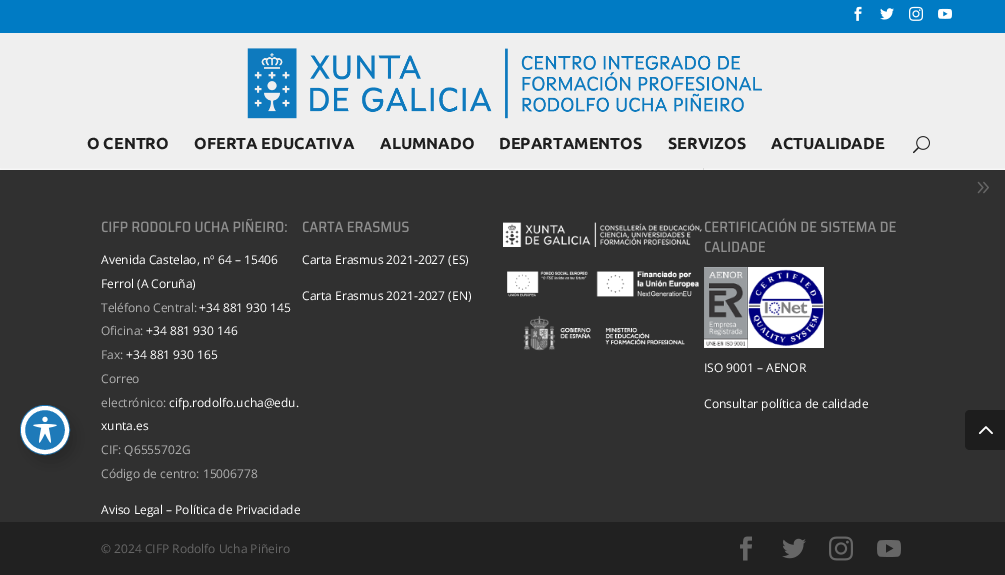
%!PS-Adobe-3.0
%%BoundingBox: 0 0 1005 575
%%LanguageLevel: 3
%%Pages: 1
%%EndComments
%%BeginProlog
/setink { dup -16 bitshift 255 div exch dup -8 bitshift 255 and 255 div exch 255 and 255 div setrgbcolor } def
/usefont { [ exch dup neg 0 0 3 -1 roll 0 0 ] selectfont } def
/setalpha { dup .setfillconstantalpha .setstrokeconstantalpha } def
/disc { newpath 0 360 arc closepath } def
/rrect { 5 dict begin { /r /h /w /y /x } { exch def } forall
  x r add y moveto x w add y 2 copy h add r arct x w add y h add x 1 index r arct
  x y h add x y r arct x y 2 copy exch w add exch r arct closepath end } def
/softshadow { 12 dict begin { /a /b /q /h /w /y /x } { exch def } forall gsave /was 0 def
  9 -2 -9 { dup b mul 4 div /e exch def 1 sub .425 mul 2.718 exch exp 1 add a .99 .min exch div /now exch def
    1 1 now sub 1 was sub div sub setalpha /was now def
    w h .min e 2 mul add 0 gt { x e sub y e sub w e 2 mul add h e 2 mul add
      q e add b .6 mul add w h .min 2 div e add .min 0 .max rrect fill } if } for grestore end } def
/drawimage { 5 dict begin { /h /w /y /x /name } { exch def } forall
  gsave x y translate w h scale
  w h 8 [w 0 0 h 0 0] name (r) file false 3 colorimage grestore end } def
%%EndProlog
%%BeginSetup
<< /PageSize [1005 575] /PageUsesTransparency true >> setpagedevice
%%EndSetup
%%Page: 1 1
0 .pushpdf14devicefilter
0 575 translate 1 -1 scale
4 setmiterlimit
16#FFFFFF setink
0 0 1005 575 rectfill
16#303030 setink
0 170 1005 352 rectfill
16#1E7AB9 setink
45 430 24.5 disc stroke
16#000000 setink
27 414 48 48 24 8 0.2 softshadow
16#1E7AB9 setink
45 430 22 disc gsave fill grestore
16#FFFFFF setink
4 setlinewidth
stroke
(img1.raw) 33 416 24 27 drawimage
16#E2E2E2 setink
703 168 1 2 rectfill
16#000000 setink
0 33 1005 135 0 3.5 0.1 softshadow
16#007BC4 setink
0 0 1005 33 rectfill
(img2.raw) 854 6 8 15 drawimage
(img3.raw) 880 8 14 12 drawimage
(img4.raw) 909 6 14 15 drawimage
(img5.raw) 938 8 14 11 drawimage
16#EFEFEF setink
0 33 1005 135 rectfill
(img6.raw) 247 48 515 71 drawimage
/Ubuntu-Bold 16 usefont
16#1F1F1F setink
[
    [(O CENTRO) 87 149]
    [(OFERTA EDUCATIVA) 194 149]
    [(ALUMNADO) 380 149]
    [(DEPARTAMENTOS) 499 149]
    [(SERVIZOS) 668 149]
    [(ACTUALIDADE) 771 149]
] { aload pop moveto show } forall
(img7.raw) 913 136 17 18 drawimage
(img8.raw) 977 181 12 13 drawimage
(img9.raw) 101 218 186 15 drawimage
/OpenSans-Regular 12 usefont
16#FFFFFF setink
101 264 moveto (Avenida Castelao, nº 64 – 15406) show
101 288 moveto (Ferrol \(A Coruña\)) show
16#AFAFAF setink
101 312 moveto (Teléfono Central:) show
16#FFFFFF setink
199 312 moveto (+34 881 930 145) show
16#AFAFAF setink
101 335 moveto (Oficina:) show
16#FFFFFF setink
146 335 moveto (+34 881 930 146) show
16#AFAFAF setink
101 359 moveto (Fax:) show
16#FFFFFF setink
126 359 moveto (+34 881 930 165) show
16#AFAFAF setink
101 383 moveto (Correo) show
101 407 moveto (electrónico:) show
16#FFFFFF setink
169 407 moveto (cifp.rodolfo.ucha@edu.) show
101 430 moveto (xunta.es) show
16#AFAFAF setink
101 454 moveto (CIF: Q6555702G) show
101 478 moveto (Código de centro: 15006778) show
16#FFFFFF setink
101 514 moveto (Aviso Legal – Política de Privacidade) show
(img10.raw) 302 221 107 12 drawimage
302 264 moveto (Carta Erasmus 2021-2027 \(ES\)) show
302 300 moveto (Carta Erasmus 2021-2027 \(EN\)) show
(img11.raw) 503 222 199 25 drawimage
(img12.raw) 507 271 192 26 drawimage
(img13.raw) 523 316 162 35 drawimage
(img14.raw) 704 218 192 15 drawimage
(img15.raw) 704 241 61 12 drawimage
(img16.raw) 704 267 120 81 drawimage
704 372 moveto (ISO 9001 – AENOR) show
704 408 moveto (Consultar política de calidade) show
16#212121 setink
0 522 1005 53 rectfill
16#666666 setink
101 553 moveto (© 2024 CIFP Rodolfo Ucha Piñeiro) show
(img17.raw) 740 536 12 25 drawimage
(img18.raw) 782 538 24 21 drawimage
(img19.raw) 829 536 24 25 drawimage
(img20.raw) 877 540 24 17 drawimage
16#1D1D1D setink
970 410 moveto 1005 410 lineto 1005 450 lineto 970 450 lineto 967 450 965 448 965 445 curveto 965 415 lineto 965 412 967 410 970 410 curveto closepath fill
(img21.raw) 978 426 15 9 drawimage
.poppdf14devicefilter showpage
%%EOF
